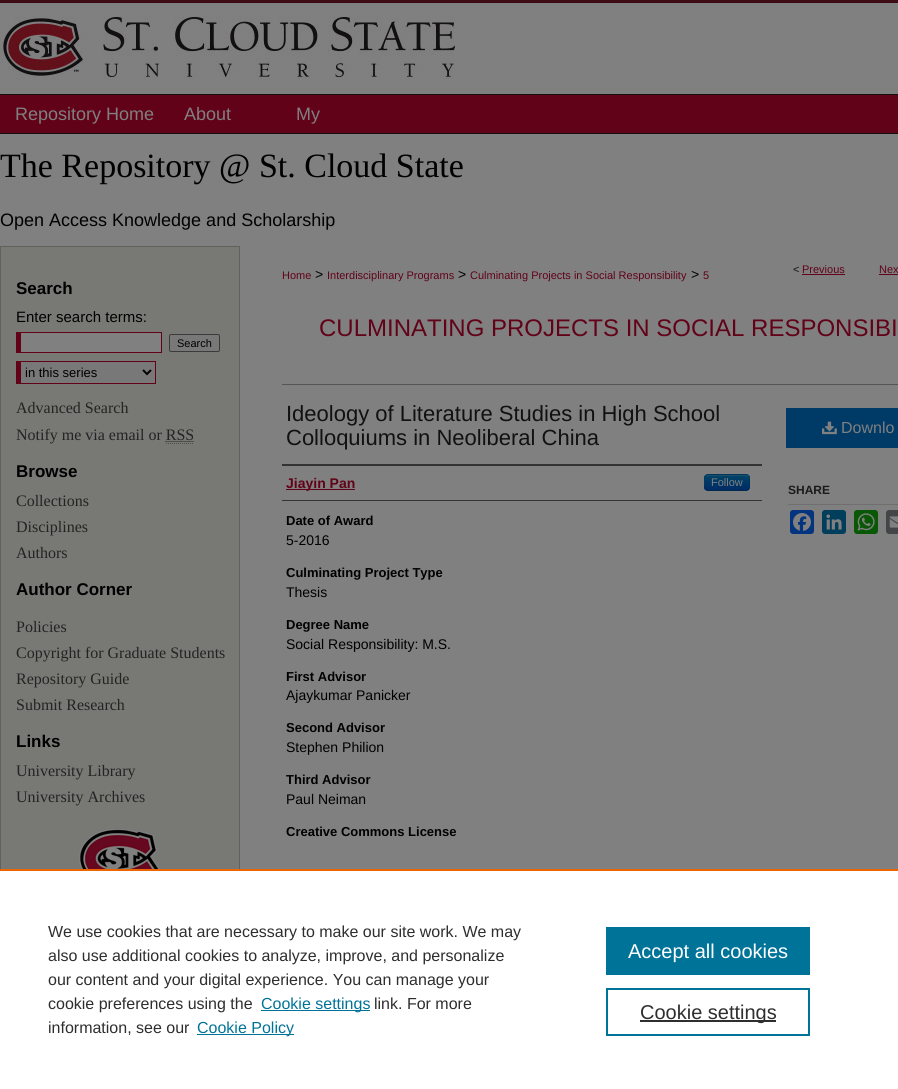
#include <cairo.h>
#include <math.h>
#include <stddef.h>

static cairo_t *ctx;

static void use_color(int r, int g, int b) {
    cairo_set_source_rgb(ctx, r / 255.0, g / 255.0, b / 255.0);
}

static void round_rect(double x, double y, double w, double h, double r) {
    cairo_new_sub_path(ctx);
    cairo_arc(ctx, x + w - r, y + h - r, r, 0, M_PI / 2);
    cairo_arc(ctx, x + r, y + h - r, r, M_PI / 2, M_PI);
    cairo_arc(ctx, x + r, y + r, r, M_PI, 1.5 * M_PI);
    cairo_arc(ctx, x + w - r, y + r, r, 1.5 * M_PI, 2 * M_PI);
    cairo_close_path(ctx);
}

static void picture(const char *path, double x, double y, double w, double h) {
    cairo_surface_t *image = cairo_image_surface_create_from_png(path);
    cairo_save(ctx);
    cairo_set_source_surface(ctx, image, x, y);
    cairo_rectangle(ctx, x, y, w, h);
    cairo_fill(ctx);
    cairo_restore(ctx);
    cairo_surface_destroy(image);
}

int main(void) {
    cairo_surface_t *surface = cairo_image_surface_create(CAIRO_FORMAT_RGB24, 898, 1089);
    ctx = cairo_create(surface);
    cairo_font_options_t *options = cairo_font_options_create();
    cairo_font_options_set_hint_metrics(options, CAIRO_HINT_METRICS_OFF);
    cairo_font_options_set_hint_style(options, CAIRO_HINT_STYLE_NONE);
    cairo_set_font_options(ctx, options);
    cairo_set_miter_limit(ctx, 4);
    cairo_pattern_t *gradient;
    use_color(128, 128, 128);
    cairo_paint(ctx);
    picture("img1.png", 0, 0, 898, 95);
    use_color(97, 2, 24);
    cairo_rectangle(ctx, 0, 95, 898, 38);
    cairo_fill(ctx);
    use_color(19, 15, 13);
    cairo_rectangle(ctx, 0, 133, 898, 1);
    cairo_fill(ctx);
    cairo_select_font_face(ctx, "Liberation Sans", CAIRO_FONT_SLANT_NORMAL, CAIRO_FONT_WEIGHT_NORMAL);
    cairo_set_font_size(ctx, 18);
    use_color(128, 128, 128);
    cairo_move_to(ctx, 15, 120);
    cairo_show_text(ctx, "Repository Home");
    cairo_move_to(ctx, 184, 120);
    cairo_show_text(ctx, "About");
    cairo_move_to(ctx, 296, 120);
    cairo_show_text(ctx, "My");
    cairo_select_font_face(ctx, "Liberation Serif", CAIRO_FONT_SLANT_NORMAL, CAIRO_FONT_WEIGHT_NORMAL);
    cairo_set_font_size(ctx, 34);
    use_color(0, 0, 0);
    cairo_move_to(ctx, 0, 177);
    cairo_show_text(ctx, "The Repository @ St. Cloud State");
    cairo_select_font_face(ctx, "Liberation Sans", CAIRO_FONT_SLANT_NORMAL, CAIRO_FONT_WEIGHT_NORMAL);
    cairo_set_font_size(ctx, 18);
    cairo_move_to(ctx, 0, 226);
    cairo_show_text(ctx, "Open Access Knowledge and Scholarship");
    use_color(120, 120, 117);
    cairo_rectangle(ctx, 1, 247, 238, 622);
    cairo_fill(ctx);
    cairo_rectangle(ctx, 0.5, 246.5, 239, 728);
    use_color(97, 97, 92);
    cairo_set_line_width(ctx, 1);
    cairo_stroke(ctx);
    cairo_select_font_face(ctx, "Liberation Sans", CAIRO_FONT_SLANT_NORMAL, CAIRO_FONT_WEIGHT_BOLD);
    cairo_set_font_size(ctx, 17);
    use_color(0, 0, 0);
    cairo_move_to(ctx, 16, 294);
    cairo_show_text(ctx, "Search");
    cairo_select_font_face(ctx, "Liberation Sans", CAIRO_FONT_SLANT_NORMAL, CAIRO_FONT_WEIGHT_NORMAL);
    cairo_set_font_size(ctx, 15);
    cairo_move_to(ctx, 16, 322);
    cairo_show_text(ctx, "Enter search terms:");
    use_color(128, 128, 128);
    cairo_rectangle(ctx, 21, 333, 140, 19);
    cairo_fill(ctx);
    use_color(97, 2, 24);
    cairo_rectangle(ctx, 16, 332, 146, 1);
    cairo_fill(ctx);
    cairo_rectangle(ctx, 161, 332, 1, 21);
    cairo_fill(ctx);
    cairo_rectangle(ctx, 16, 352, 146, 1);
    cairo_fill(ctx);
    cairo_rectangle(ctx, 16, 332, 5, 21);
    cairo_fill(ctx);
    use_color(120, 120, 120);
    round_rect(169.5, 334.5, 50, 17, 1.5);
    cairo_fill_preserve(ctx);
    use_color(59, 59, 59);
    cairo_stroke(ctx);
    cairo_set_font_size(ctx, 11);
    use_color(0, 0, 0);
    cairo_move_to(ctx, 177, 347);
    cairo_show_text(ctx, "Search");
    use_color(120, 120, 120);
    cairo_rectangle(ctx, 21, 362, 134, 21);
    cairo_fill(ctx);
    use_color(97, 2, 24);
    cairo_rectangle(ctx, 16, 361, 140, 1);
    cairo_fill(ctx);
    cairo_rectangle(ctx, 155, 361, 1, 23);
    cairo_fill(ctx);
    cairo_rectangle(ctx, 16, 383, 140, 1);
    cairo_fill(ctx);
    cairo_rectangle(ctx, 16, 361, 5, 23);
    cairo_fill(ctx);
    cairo_new_path(ctx);
    cairo_move_to(ctx, 143, 370);
    cairo_line_to(ctx, 147, 374);
    cairo_line_to(ctx, 151, 370);
    use_color(0, 0, 0);
    cairo_set_line_width(ctx, 2);
    cairo_stroke(ctx);
    cairo_set_font_size(ctx, 13);
    cairo_move_to(ctx, 25, 377);
    cairo_show_text(ctx, "in this series");
    cairo_select_font_face(ctx, "Liberation Serif", CAIRO_FONT_SLANT_NORMAL, CAIRO_FONT_WEIGHT_NORMAL);
    cairo_set_font_size(ctx, 16);
    use_color(35, 35, 35);
    cairo_move_to(ctx, 16, 413);
    cairo_show_text(ctx, "Advanced Search");
    cairo_move_to(ctx, 16, 440);
    cairo_show_text(ctx, "Notify me via email or RSS");
    cairo_new_path(ctx);
    cairo_move_to(ctx, 165.5, 441.5);
    cairo_line_to(ctx, 194, 441.5);
    cairo_set_line_width(ctx, 1);
    cairo_set_dash(ctx, (double[]){1, 1}, 2, 0);
    cairo_stroke(ctx);
    cairo_new_path(ctx);
    cairo_move_to(ctx, 166, 443.5);
    cairo_line_to(ctx, 194, 443.5);
    use_color(77, 77, 77);
    cairo_stroke(ctx);
    cairo_select_font_face(ctx, "Liberation Sans", CAIRO_FONT_SLANT_NORMAL, CAIRO_FONT_WEIGHT_BOLD);
    cairo_set_font_size(ctx, 17);
    use_color(0, 0, 0);
    cairo_move_to(ctx, 16, 477);
    cairo_show_text(ctx, "Browse");
    cairo_select_font_face(ctx, "Liberation Serif", CAIRO_FONT_SLANT_NORMAL, CAIRO_FONT_WEIGHT_NORMAL);
    cairo_set_font_size(ctx, 16);
    use_color(35, 35, 35);
    cairo_move_to(ctx, 16, 506);
    cairo_show_text(ctx, "Collections");
    cairo_move_to(ctx, 16, 532);
    cairo_show_text(ctx, "Disciplines");
    cairo_move_to(ctx, 16, 558);
    cairo_show_text(ctx, "Authors");
    cairo_select_font_face(ctx, "Liberation Sans", CAIRO_FONT_SLANT_NORMAL, CAIRO_FONT_WEIGHT_BOLD);
    cairo_set_font_size(ctx, 17);
    use_color(0, 0, 0);
    cairo_move_to(ctx, 16, 595);
    cairo_show_text(ctx, "Author Corner");
    cairo_select_font_face(ctx, "Liberation Serif", CAIRO_FONT_SLANT_NORMAL, CAIRO_FONT_WEIGHT_NORMAL);
    cairo_set_font_size(ctx, 16);
    use_color(35, 35, 35);
    cairo_move_to(ctx, 16, 632);
    cairo_show_text(ctx, "Policies");
    cairo_move_to(ctx, 16, 658);
    cairo_show_text(ctx, "Copyright for Graduate Students");
    cairo_move_to(ctx, 16, 684);
    cairo_show_text(ctx, "Repository Guide");
    cairo_move_to(ctx, 16, 710);
    cairo_show_text(ctx, "Submit Research");
    cairo_select_font_face(ctx, "Liberation Sans", CAIRO_FONT_SLANT_NORMAL, CAIRO_FONT_WEIGHT_BOLD);
    cairo_set_font_size(ctx, 17);
    use_color(0, 0, 0);
    cairo_move_to(ctx, 16, 747);
    cairo_show_text(ctx, "Links");
    cairo_select_font_face(ctx, "Liberation Serif", CAIRO_FONT_SLANT_NORMAL, CAIRO_FONT_WEIGHT_NORMAL);
    cairo_set_font_size(ctx, 16);
    use_color(35, 35, 35);
    cairo_move_to(ctx, 16, 776);
    cairo_show_text(ctx, "University Library");
    cairo_move_to(ctx, 16, 802);
    cairo_show_text(ctx, "University Archives");
    picture("img2.png", 20, 829, 200, 40);
    cairo_select_font_face(ctx, "Liberation Sans", CAIRO_FONT_SLANT_NORMAL, CAIRO_FONT_WEIGHT_NORMAL);
    cairo_set_font_size(ctx, 11);
    use_color(97, 2, 24);
    cairo_move_to(ctx, 282, 279);
    cairo_show_text(ctx, "Home");
    cairo_set_font_size(ctx, 14);
    use_color(0, 0, 0);
    cairo_move_to(ctx, 315, 279);
    cairo_show_text(ctx, ">");
    cairo_set_font_size(ctx, 11);
    use_color(97, 2, 24);
    cairo_move_to(ctx, 327, 279);
    cairo_show_text(ctx, "Interdisciplinary Programs");
    cairo_set_font_size(ctx, 14);
    use_color(0, 0, 0);
    cairo_move_to(ctx, 458, 279);
    cairo_show_text(ctx, ">");
    cairo_set_font_size(ctx, 11);
    use_color(97, 2, 24);
    cairo_move_to(ctx, 470, 279);
    cairo_show_text(ctx, "Culminating Projects in Social Responsibility");
    cairo_set_font_size(ctx, 14);
    use_color(0, 0, 0);
    cairo_move_to(ctx, 691, 279);
    cairo_show_text(ctx, ">");
    cairo_set_font_size(ctx, 11);
    use_color(97, 2, 24);
    cairo_move_to(ctx, 703, 279);
    cairo_show_text(ctx, "5");
    use_color(17, 17, 17);
    cairo_move_to(ctx, 793, 273);
    cairo_show_text(ctx, "<");
    use_color(97, 2, 24);
    cairo_move_to(ctx, 802, 273);
    cairo_show_text(ctx, "Previous");
    cairo_rectangle(ctx, 802, 274, 43, 1);
    cairo_fill(ctx);
    cairo_move_to(ctx, 879, 273);
    cairo_show_text(ctx, "Nex");
    cairo_rectangle(ctx, 879, 274, 19, 1);
    cairo_fill(ctx);
    cairo_set_font_size(ctx, 24);
    cairo_move_to(ctx, 319, 336);
    cairo_show_text(ctx, "CULMINATING PROJECTS IN SOCIAL RESPONSIBI");
    use_color(85, 85, 85);
    cairo_rectangle(ctx, 282, 384, 616, 1);
    cairo_fill(ctx);
    cairo_set_font_size(ctx, 22);
    use_color(17, 17, 17);
    cairo_move_to(ctx, 286, 421);
    cairo_show_text(ctx, "Ideology of Literature Studies in High School");
    cairo_move_to(ctx, 286, 445);
    cairo_show_text(ctx, "Colloquiums in Neoliberal China");
    use_color(51, 51, 51);
    cairo_rectangle(ctx, 282, 464, 480, 2);
    cairo_fill(ctx);
    cairo_rectangle(ctx, 282, 500, 480, 1);
    cairo_fill(ctx);
    use_color(97, 2, 24);
    cairo_rectangle(ctx, 286, 489, 69, 1);
    cairo_fill(ctx);
    cairo_select_font_face(ctx, "Liberation Sans", CAIRO_FONT_SLANT_NORMAL, CAIRO_FONT_WEIGHT_BOLD);
    cairo_set_font_size(ctx, 14);
    cairo_move_to(ctx, 286, 488);
    cairo_show_text(ctx, "Jiayin Pan");
    use_color(0, 58, 102);
    round_rect(704, 474, 46, 17, 4);
    cairo_fill(ctx);
    cairo_save(ctx);
    round_rect(704, 474, 46, 17, 4);
    cairo_clip(ctx);
    gradient = cairo_pattern_create_linear(727, 475, 727, 490);
    cairo_pattern_add_color_stop_rgba(gradient, 0, 0, 0.267, 0.4, 1);
    cairo_pattern_add_color_stop_rgba(gradient, 1, 0, 0.169, 0.4, 1);
    cairo_set_source(ctx, gradient);
    cairo_pattern_destroy(gradient);
    cairo_rectangle(ctx, 704, 475, 46, 15);
    cairo_fill(ctx);
    cairo_restore(ctx);
    cairo_set_source_rgba(ctx, 0.502, 0.502, 0.502, 0.2);
    cairo_new_path(ctx);
    cairo_move_to(ctx, 708, 476);
    cairo_line_to(ctx, 741, 476);
    cairo_curve_to(ctx, 748, 476, 749, 476, 749, 482);
    cairo_line_to(ctx, 749, 488);
    cairo_line_to(ctx, 749, 481);
    cairo_curve_to(ctx, 749, 474, 747, 475, 740, 475);
    cairo_line_to(ctx, 714, 475);
    cairo_curve_to(ctx, 707, 475, 705, 474, 705, 481);
    cairo_line_to(ctx, 705, 489);
    cairo_curve_to(ctx, 705, 486, 703, 476, 708, 476);
    cairo_close_path(ctx);
    cairo_fill(ctx);
    cairo_new_path(ctx);
    cairo_move_to(ctx, 748.5, 489.5);
    cairo_curve_to(ctx, 748, 490, 747, 490.5, 746, 490.5);
    cairo_line_to(ctx, 708, 490.5);
    cairo_curve_to(ctx, 707, 490.5, 706, 490, 705.5, 489.5);
    cairo_set_source_rgba(ctx, 0, 0, 0, 0.25);
    cairo_set_dash(ctx, NULL, 0, 0);
    cairo_stroke(ctx);
    cairo_new_path(ctx);
    cairo_move_to(ctx, 705.5, 489.5);
    cairo_curve_to(ctx, 704, 487.5, 704.5, 484.5, 704.5, 482.5);
    cairo_curve_to(ctx, 704.5, 473.5, 705, 474.5, 714.5, 474.5);
    cairo_line_to(ctx, 739.5, 474.5);
    cairo_curve_to(ctx, 749, 474.5, 749.5, 473.5, 749.5, 482.5);
    cairo_curve_to(ctx, 749.5, 484.5, 750, 487.5, 748.5, 489.5);
    cairo_set_source_rgba(ctx, 0, 0, 0, 0.1);
    cairo_stroke(ctx);
    cairo_select_font_face(ctx, "Liberation Sans", CAIRO_FONT_SLANT_NORMAL, CAIRO_FONT_WEIGHT_NORMAL);
    cairo_set_font_size(ctx, 11);
    use_color(128, 128, 128);
    cairo_move_to(ctx, 711, 486);
    cairo_show_text(ctx, "Follow");
    cairo_select_font_face(ctx, "Liberation Sans", CAIRO_FONT_SLANT_NORMAL, CAIRO_FONT_WEIGHT_BOLD);
    cairo_set_font_size(ctx, 13);
    use_color(0, 0, 0);
    cairo_move_to(ctx, 286, 525);
    cairo_show_text(ctx, "Date of Award");
    cairo_select_font_face(ctx, "Liberation Sans", CAIRO_FONT_SLANT_NORMAL, CAIRO_FONT_WEIGHT_NORMAL);
    cairo_set_font_size(ctx, 14);
    cairo_move_to(ctx, 286, 545);
    cairo_show_text(ctx, "5-2016");
    cairo_select_font_face(ctx, "Liberation Sans", CAIRO_FONT_SLANT_NORMAL, CAIRO_FONT_WEIGHT_BOLD);
    cairo_set_font_size(ctx, 13);
    cairo_move_to(ctx, 286, 577);
    cairo_show_text(ctx, "Culminating Project Type");
    cairo_select_font_face(ctx, "Liberation Sans", CAIRO_FONT_SLANT_NORMAL, CAIRO_FONT_WEIGHT_NORMAL);
    cairo_set_font_size(ctx, 14);
    cairo_move_to(ctx, 286, 597);
    cairo_show_text(ctx, "Thesis");
    cairo_select_font_face(ctx, "Liberation Sans", CAIRO_FONT_SLANT_NORMAL, CAIRO_FONT_WEIGHT_BOLD);
    cairo_set_font_size(ctx, 13);
    cairo_move_to(ctx, 286, 629);
    cairo_show_text(ctx, "Degree Name");
    cairo_select_font_face(ctx, "Liberation Sans", CAIRO_FONT_SLANT_NORMAL, CAIRO_FONT_WEIGHT_NORMAL);
    cairo_set_font_size(ctx, 14);
    cairo_move_to(ctx, 286, 649);
    cairo_show_text(ctx, "Social Responsibility: M.S.");
    cairo_select_font_face(ctx, "Liberation Sans", CAIRO_FONT_SLANT_NORMAL, CAIRO_FONT_WEIGHT_BOLD);
    cairo_set_font_size(ctx, 13);
    cairo_move_to(ctx, 286, 681);
    cairo_show_text(ctx, "First Advisor");
    cairo_select_font_face(ctx, "Liberation Sans", CAIRO_FONT_SLANT_NORMAL, CAIRO_FONT_WEIGHT_NORMAL);
    cairo_set_font_size(ctx, 14);
    cairo_move_to(ctx, 286, 700);
    cairo_show_text(ctx, "Ajaykumar Panicker");
    cairo_select_font_face(ctx, "Liberation Sans", CAIRO_FONT_SLANT_NORMAL, CAIRO_FONT_WEIGHT_BOLD);
    cairo_set_font_size(ctx, 13);
    cairo_move_to(ctx, 286, 732);
    cairo_show_text(ctx, "Second Advisor");
    cairo_select_font_face(ctx, "Liberation Sans", CAIRO_FONT_SLANT_NORMAL, CAIRO_FONT_WEIGHT_NORMAL);
    cairo_set_font_size(ctx, 14);
    cairo_move_to(ctx, 286, 752);
    cairo_show_text(ctx, "Stephen Philion");
    cairo_select_font_face(ctx, "Liberation Sans", CAIRO_FONT_SLANT_NORMAL, CAIRO_FONT_WEIGHT_BOLD);
    cairo_set_font_size(ctx, 13);
    cairo_move_to(ctx, 286, 784);
    cairo_show_text(ctx, "Third Advisor");
    cairo_select_font_face(ctx, "Liberation Sans", CAIRO_FONT_SLANT_NORMAL, CAIRO_FONT_WEIGHT_NORMAL);
    cairo_set_font_size(ctx, 14);
    cairo_move_to(ctx, 286, 804);
    cairo_show_text(ctx, "Paul Neiman");
    cairo_select_font_face(ctx, "Liberation Sans", CAIRO_FONT_SLANT_NORMAL, CAIRO_FONT_WEIGHT_BOLD);
    cairo_set_font_size(ctx, 13);
    cairo_move_to(ctx, 286, 836);
    cairo_show_text(ctx, "Creative Commons License");
    use_color(0, 58, 102);
    cairo_rectangle(ctx, 786, 408, 112, 40);
    cairo_fill(ctx);
    picture("img3.png", 822, 421, 15, 14);
    cairo_select_font_face(ctx, "Liberation Sans", CAIRO_FONT_SLANT_NORMAL, CAIRO_FONT_WEIGHT_NORMAL);
    cairo_set_font_size(ctx, 16);
    use_color(128, 128, 128);
    cairo_move_to(ctx, 841, 433);
    cairo_show_text(ctx, "Downlo");
    use_color(111, 111, 111);
    cairo_rectangle(ctx, 788, 504, 110, 1);
    cairo_fill(ctx);
    cairo_select_font_face(ctx, "Liberation Sans", CAIRO_FONT_SLANT_NORMAL, CAIRO_FONT_WEIGHT_BOLD);
    cairo_set_font_size(ctx, 12);
    use_color(26, 26, 26);
    cairo_move_to(ctx, 788, 494);
    cairo_show_text(ctx, "SHARE");
    use_color(4, 51, 128);
    round_rect(790, 510, 24, 24, 3);
    cairo_fill(ctx);
    picture("img4.png", 793, 513, 18, 18);
    use_color(0, 62, 91);
    round_rect(822, 510, 24, 24, 3);
    cairo_fill(ctx);
    picture("img5.png", 826, 514, 16, 16);
    use_color(9, 88, 5);
    round_rect(854, 510, 24, 24, 3);
    cairo_fill(ctx);
    picture("img6.png", 857, 513, 18, 18);
    use_color(68, 69, 72);
    round_rect(886, 510, 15, 24, 3);
    cairo_fill(ctx);
    picture("img7.png", 889, 516, 9, 12);
    use_color(255, 255, 255);
    cairo_rectangle(ctx, 0, 871, 898, 218);
    cairo_fill(ctx);
    use_color(235, 101, 0);
    cairo_rectangle(ctx, 0, 869, 898, 2);
    cairo_fill(ctx);
    cairo_select_font_face(ctx, "Liberation Sans", CAIRO_FONT_SLANT_NORMAL, CAIRO_FONT_WEIGHT_NORMAL);
    cairo_set_font_size(ctx, 16);
    use_color(46, 46, 46);
    cairo_move_to(ctx, 48, 937);
    cairo_show_text(ctx, "We use cookies that are necessary to make our site work. We may");
    cairo_move_to(ctx, 48, 961);
    cairo_show_text(ctx, "also use additional cookies to analyze, improve, and personalize");
    cairo_move_to(ctx, 48, 985);
    cairo_show_text(ctx, "our content and your digital experience. You can manage your");
    cairo_move_to(ctx, 48, 1009);
    cairo_show_text(ctx, "cookie preferences using the");
    use_color(0, 115, 152);
    cairo_rectangle(ctx, 261, 1010, 109, 1);
    cairo_fill(ctx);
    cairo_move_to(ctx, 261, 1009);
    cairo_show_text(ctx, "Cookie settings");
    use_color(46, 46, 46);
    cairo_move_to(ctx, 374, 1009);
    cairo_show_text(ctx, "link. For more");
    cairo_move_to(ctx, 48, 1033);
    cairo_show_text(ctx, "information, see our");
    use_color(0, 115, 152);
    cairo_rectangle(ctx, 197, 1034, 97, 1);
    cairo_fill(ctx);
    cairo_move_to(ctx, 197, 1033);
    cairo_show_text(ctx, "Cookie Policy");
    cairo_rectangle(ctx, 606, 927, 204, 48);
    cairo_fill(ctx);
    cairo_set_font_size(ctx, 20);
    use_color(255, 255, 255);
    cairo_move_to(ctx, 628, 958);
    cairo_show_text(ctx, "Accept all cookies");
    cairo_rectangle(ctx, 607, 989, 202, 46);
    use_color(0, 115, 152);
    cairo_set_line_width(ctx, 2);
    cairo_stroke(ctx);
    use_color(46, 46, 46);
    cairo_rectangle(ctx, 640, 1020, 136, 2);
    cairo_fill(ctx);
    cairo_move_to(ctx, 640, 1019);
    cairo_show_text(ctx, "Cookie settings");
    cairo_surface_write_to_png(surface, "result.png");
    cairo_font_options_destroy(options);
    cairo_destroy(ctx);
    cairo_surface_destroy(surface);
    return 0;
}
